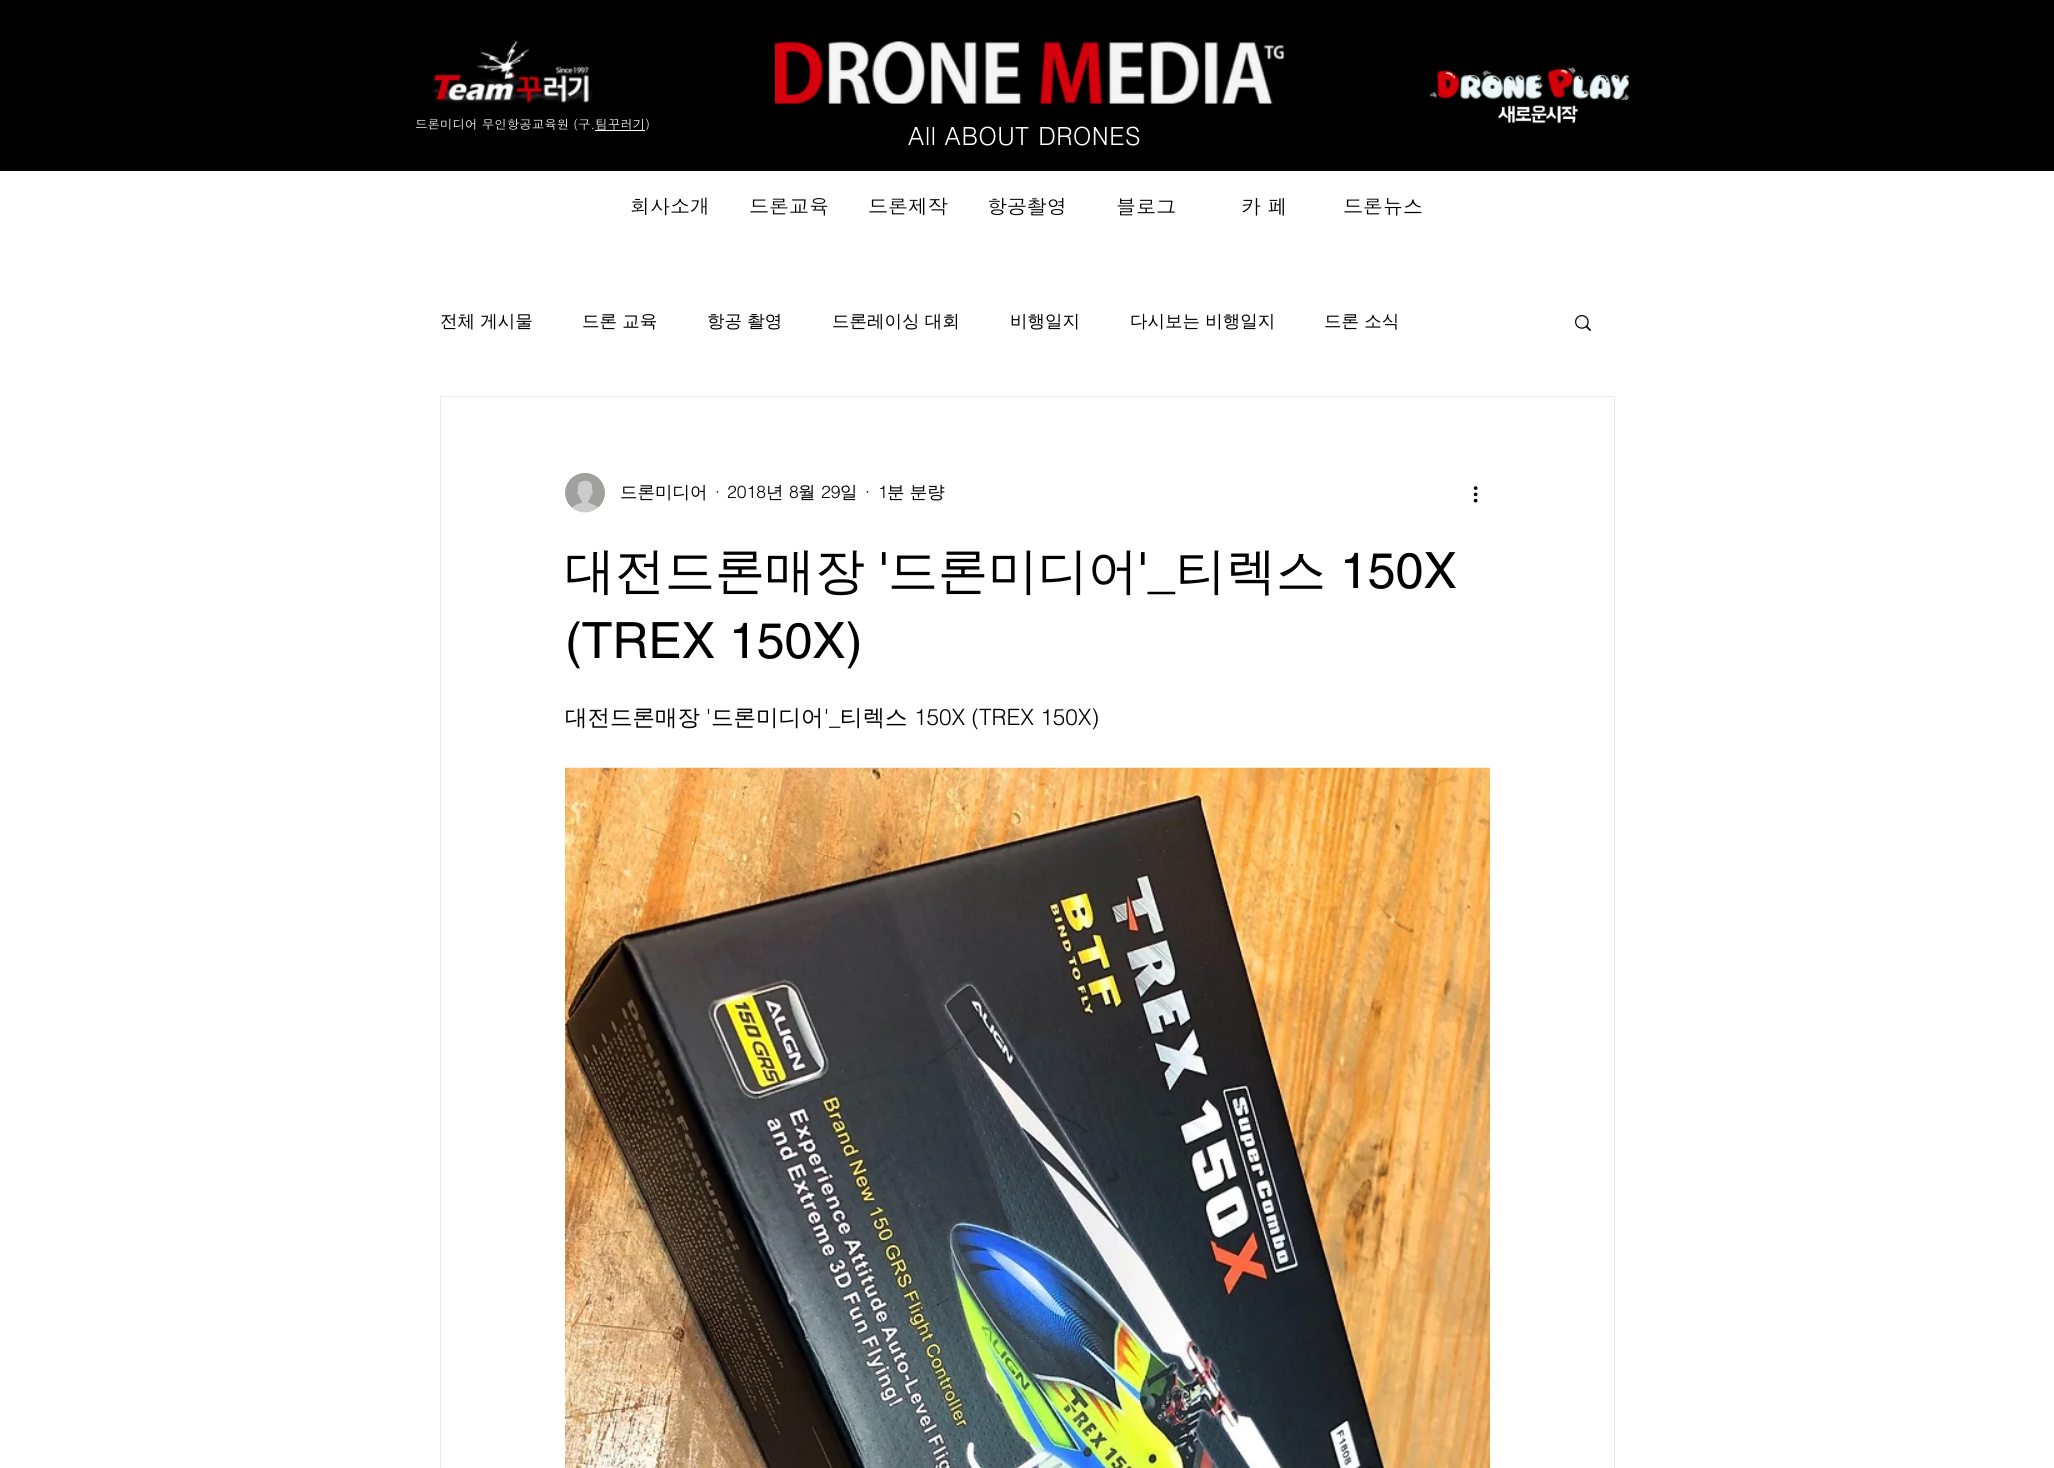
#include <cairo.h>
#include <math.h>
#include <stddef.h>

static cairo_t *ctx;

static void use_color(int r, int g, int b) {
    cairo_set_source_rgb(ctx, r / 255.0, g / 255.0, b / 255.0);
}

static void picture(const char *path, double x, double y, double w, double h) {
    cairo_surface_t *image = cairo_image_surface_create_from_png(path);
    cairo_save(ctx);
    cairo_set_source_surface(ctx, image, x, y);
    cairo_rectangle(ctx, x, y, w, h);
    cairo_fill(ctx);
    cairo_restore(ctx);
    cairo_surface_destroy(image);
}

int main(void) {
    cairo_surface_t *surface = cairo_image_surface_create(CAIRO_FORMAT_RGB24, 2054, 1468);
    ctx = cairo_create(surface);
    cairo_font_options_t *options = cairo_font_options_create();
    cairo_font_options_set_hint_metrics(options, CAIRO_HINT_METRICS_OFF);
    cairo_font_options_set_hint_style(options, CAIRO_HINT_STYLE_NONE);
    cairo_set_font_options(ctx, options);
    cairo_set_miter_limit(ctx, 4);
    use_color(255, 255, 255);
    cairo_paint(ctx);
    use_color(0, 0, 0);
    cairo_rectangle(ctx, 0, 0, 2054, 171);
    cairo_fill(ctx);
    picture("img1.png", 431, 41, 162, 62);
    picture("img2.png", 775, 41, 509, 63);
    picture("img3.png", 1430, 67, 199, 33);
    cairo_select_font_face(ctx, "Dotum", CAIRO_FONT_SLANT_NORMAL, CAIRO_FONT_WEIGHT_NORMAL);
    cairo_set_font_size(ctx, 12.5);
    use_color(255, 255, 255);
    cairo_move_to(ctx, 415, 129);
    cairo_show_text(ctx, "드론미디어 무인항공교육원 (구.팀꾸러기)");
    cairo_rectangle(ctx, 595, 130, 50, 1);
    cairo_fill(ctx);
    picture("img4.png", 1498, 105, 80, 19);
    cairo_set_font_size(ctx, 25);
    cairo_move_to(ctx, 908, 145);
    cairo_show_text(ctx, "All ABOUT DRONES");
    cairo_set_font_size(ctx, 20);
    use_color(0, 0, 0);
    cairo_move_to(ctx, 630, 214);
    cairo_show_text(ctx, "회사소개");
    cairo_move_to(ctx, 749, 214);
    cairo_show_text(ctx, "드론교육");
    cairo_move_to(ctx, 868, 214);
    cairo_show_text(ctx, "드론제작");
    cairo_move_to(ctx, 987, 214);
    cairo_show_text(ctx, "항공촬영");
    cairo_move_to(ctx, 1116, 214);
    cairo_show_text(ctx, "블로그");
    cairo_move_to(ctx, 1241, 214);
    cairo_show_text(ctx, "카 페");
    cairo_move_to(ctx, 1343, 214);
    cairo_show_text(ctx, "드론뉴스");
    cairo_select_font_face(ctx, "WenQuanYi Zen Hei Medium", CAIRO_FONT_SLANT_NORMAL, CAIRO_FONT_WEIGHT_NORMAL);
    cairo_set_font_size(ctx, 17.5);
    cairo_move_to(ctx, 440, 327);
    cairo_show_text(ctx, "전체 게시물");
    cairo_move_to(ctx, 582, 327);
    cairo_show_text(ctx, "드론 교육");
    cairo_move_to(ctx, 707, 327);
    cairo_show_text(ctx, "항공 촬영");
    cairo_move_to(ctx, 832, 327);
    cairo_show_text(ctx, "드론레이싱 대회");
    cairo_move_to(ctx, 1010, 327);
    cairo_show_text(ctx, "비행일지");
    cairo_move_to(ctx, 1130, 327);
    cairo_show_text(ctx, "다시보는 비행일지");
    cairo_move_to(ctx, 1324, 327);
    cairo_show_text(ctx, "드론 소식");
    picture("img5.png", 1575, 315, 16, 16);
    cairo_rectangle(ctx, 440.5, 396.5, 1174, 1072);
    use_color(235, 235, 235);
    cairo_set_line_width(ctx, 1);
    cairo_stroke(ctx);
    picture("img6.png", 565, 473, 40, 40);
    use_color(0, 0, 0);
    cairo_move_to(ctx, 620, 498);
    cairo_show_text(ctx, "드론미디어");
    cairo_select_font_face(ctx, "helvetica Light", CAIRO_FONT_SLANT_NORMAL, CAIRO_FONT_WEIGHT_NORMAL);
    cairo_move_to(ctx, 715, 498);
    cairo_show_text(ctx, "·");
    cairo_move_to(ctx, 727, 498);
    cairo_show_text(ctx, "2018");
    cairo_select_font_face(ctx, "WenQuanYi Zen Hei Medium", CAIRO_FONT_SLANT_NORMAL, CAIRO_FONT_WEIGHT_NORMAL);
    cairo_move_to(ctx, 766, 498);
    cairo_show_text(ctx, "년");
    cairo_select_font_face(ctx, "helvetica Light", CAIRO_FONT_SLANT_NORMAL, CAIRO_FONT_WEIGHT_NORMAL);
    cairo_move_to(ctx, 789, 498);
    cairo_show_text(ctx, "8");
    cairo_select_font_face(ctx, "WenQuanYi Zen Hei Medium", CAIRO_FONT_SLANT_NORMAL, CAIRO_FONT_WEIGHT_NORMAL);
    cairo_move_to(ctx, 798, 498);
    cairo_show_text(ctx, "월");
    cairo_select_font_face(ctx, "helvetica Light", CAIRO_FONT_SLANT_NORMAL, CAIRO_FONT_WEIGHT_NORMAL);
    cairo_move_to(ctx, 821, 498);
    cairo_show_text(ctx, "29");
    cairo_select_font_face(ctx, "WenQuanYi Zen Hei Medium", CAIRO_FONT_SLANT_NORMAL, CAIRO_FONT_WEIGHT_NORMAL);
    cairo_move_to(ctx, 840, 498);
    cairo_show_text(ctx, "일");
    cairo_select_font_face(ctx, "helvetica Light", CAIRO_FONT_SLANT_NORMAL, CAIRO_FONT_WEIGHT_NORMAL);
    cairo_move_to(ctx, 865, 498);
    cairo_show_text(ctx, "·");
    cairo_move_to(ctx, 878, 498);
    cairo_show_text(ctx, "1");
    cairo_select_font_face(ctx, "WenQuanYi Zen Hei Medium", CAIRO_FONT_SLANT_NORMAL, CAIRO_FONT_WEIGHT_NORMAL);
    cairo_move_to(ctx, 887, 498);
    cairo_show_text(ctx, "분 분량");
    picture("img7.png", 1473, 486, 5, 17);
    cairo_set_font_size(ctx, 50);
    cairo_move_to(ctx, 565, 588);
    cairo_show_text(ctx, "대전드론매장");
    cairo_select_font_face(ctx, "helvetica", CAIRO_FONT_SLANT_NORMAL, CAIRO_FONT_WEIGHT_NORMAL);
    cairo_move_to(ctx, 879, 588);
    cairo_show_text(ctx, "'");
    cairo_select_font_face(ctx, "WenQuanYi Zen Hei Medium", CAIRO_FONT_SLANT_NORMAL, CAIRO_FONT_WEIGHT_NORMAL);
    cairo_move_to(ctx, 888, 588);
    cairo_show_text(ctx, "드론미디어");
    cairo_select_font_face(ctx, "helvetica", CAIRO_FONT_SLANT_NORMAL, CAIRO_FONT_WEIGHT_NORMAL);
    cairo_move_to(ctx, 1138, 588);
    cairo_show_text(ctx, "'_");
    cairo_select_font_face(ctx, "WenQuanYi Zen Hei Medium", CAIRO_FONT_SLANT_NORMAL, CAIRO_FONT_WEIGHT_NORMAL);
    cairo_move_to(ctx, 1176, 588);
    cairo_show_text(ctx, "티렉스");
    cairo_select_font_face(ctx, "helvetica", CAIRO_FONT_SLANT_NORMAL, CAIRO_FONT_WEIGHT_NORMAL);
    cairo_move_to(ctx, 1340, 588);
    cairo_show_text(ctx, "150X");
    cairo_move_to(ctx, 565, 658);
    cairo_show_text(ctx, "(TREX 150X)");
    cairo_select_font_face(ctx, "WenQuanYi Zen Hei Medium", CAIRO_FONT_SLANT_NORMAL, CAIRO_FONT_WEIGHT_NORMAL);
    cairo_set_font_size(ctx, 22.5);
    cairo_move_to(ctx, 565, 725);
    cairo_show_text(ctx, "대전드론매장");
    cairo_select_font_face(ctx, "helvetica Light", CAIRO_FONT_SLANT_NORMAL, CAIRO_FONT_WEIGHT_NORMAL);
    cairo_move_to(ctx, 706, 725);
    cairo_show_text(ctx, "'");
    cairo_select_font_face(ctx, "WenQuanYi Zen Hei Medium", CAIRO_FONT_SLANT_NORMAL, CAIRO_FONT_WEIGHT_NORMAL);
    cairo_move_to(ctx, 711, 725);
    cairo_show_text(ctx, "드론미디어");
    cairo_select_font_face(ctx, "helvetica Light", CAIRO_FONT_SLANT_NORMAL, CAIRO_FONT_WEIGHT_NORMAL);
    cairo_move_to(ctx, 824, 725);
    cairo_show_text(ctx, "'_");
    cairo_select_font_face(ctx, "WenQuanYi Zen Hei Medium", CAIRO_FONT_SLANT_NORMAL, CAIRO_FONT_WEIGHT_NORMAL);
    cairo_move_to(ctx, 840, 725);
    cairo_show_text(ctx, "티렉스");
    cairo_select_font_face(ctx, "helvetica Light", CAIRO_FONT_SLANT_NORMAL, CAIRO_FONT_WEIGHT_NORMAL);
    cairo_move_to(ctx, 914, 725);
    cairo_show_text(ctx, "150X (TREX 150X)");
    picture("img8.png", 565, 767, 925, 701);
    cairo_surface_write_to_png(surface, "result.png");
    cairo_font_options_destroy(options);
    cairo_destroy(ctx);
    cairo_surface_destroy(surface);
    return 0;
}
